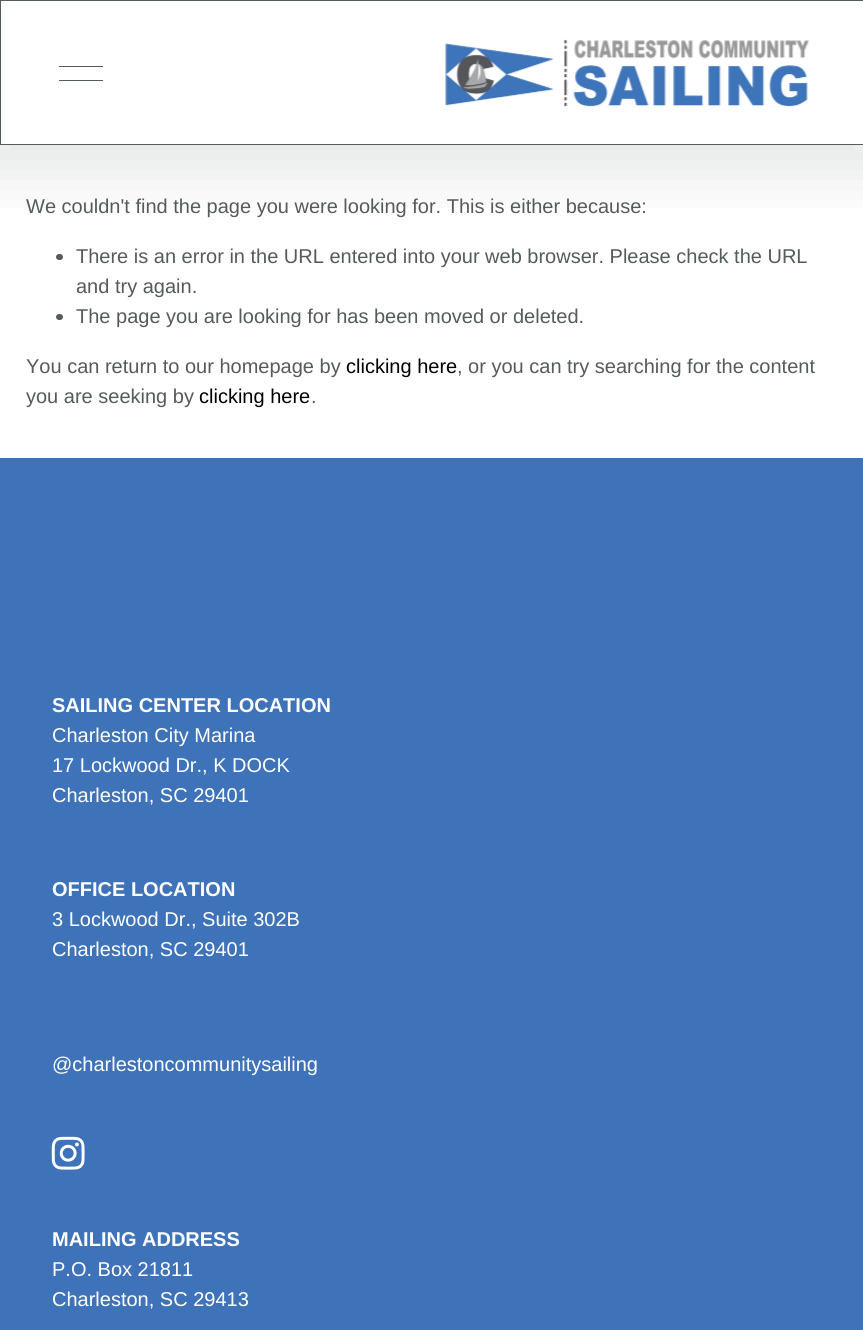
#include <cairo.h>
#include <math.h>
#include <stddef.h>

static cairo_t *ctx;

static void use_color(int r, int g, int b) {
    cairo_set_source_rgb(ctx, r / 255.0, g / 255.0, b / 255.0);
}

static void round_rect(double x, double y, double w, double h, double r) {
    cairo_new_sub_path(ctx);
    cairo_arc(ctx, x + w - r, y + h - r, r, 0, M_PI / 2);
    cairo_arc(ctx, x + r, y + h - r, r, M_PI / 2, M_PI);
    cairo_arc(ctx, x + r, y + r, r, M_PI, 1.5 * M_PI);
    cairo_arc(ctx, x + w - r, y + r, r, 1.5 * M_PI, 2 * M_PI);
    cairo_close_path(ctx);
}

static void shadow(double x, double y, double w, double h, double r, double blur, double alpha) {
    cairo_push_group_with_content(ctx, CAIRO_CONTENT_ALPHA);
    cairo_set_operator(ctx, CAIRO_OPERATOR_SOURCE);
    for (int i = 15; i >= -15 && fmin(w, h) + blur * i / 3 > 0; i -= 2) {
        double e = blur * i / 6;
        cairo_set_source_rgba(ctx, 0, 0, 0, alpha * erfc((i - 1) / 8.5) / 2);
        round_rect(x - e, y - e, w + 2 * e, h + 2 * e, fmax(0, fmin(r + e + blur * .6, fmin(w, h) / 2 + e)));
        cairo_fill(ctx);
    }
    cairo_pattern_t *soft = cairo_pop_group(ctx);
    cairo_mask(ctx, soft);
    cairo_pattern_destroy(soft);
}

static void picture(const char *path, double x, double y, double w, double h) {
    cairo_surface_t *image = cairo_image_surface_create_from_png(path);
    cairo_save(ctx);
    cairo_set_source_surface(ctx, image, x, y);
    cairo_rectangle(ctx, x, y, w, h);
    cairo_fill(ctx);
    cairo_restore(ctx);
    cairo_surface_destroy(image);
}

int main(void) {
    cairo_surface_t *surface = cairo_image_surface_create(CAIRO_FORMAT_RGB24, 863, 1330);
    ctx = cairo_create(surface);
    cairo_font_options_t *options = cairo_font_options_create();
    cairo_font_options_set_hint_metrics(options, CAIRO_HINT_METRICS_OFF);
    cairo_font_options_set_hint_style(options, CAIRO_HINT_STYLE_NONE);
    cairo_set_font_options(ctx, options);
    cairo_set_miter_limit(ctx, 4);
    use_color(255, 255, 255);
    cairo_paint(ctx);
    use_color(84, 91, 91);
    round_rect(56, 254, 7, 6, 3);
    cairo_fill(ctx);
    cairo_save(ctx);
    cairo_rectangle(ctx, 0, 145, 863, 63);
    cairo_clip(ctx);
    use_color(84, 91, 91);
    shadow(-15, 0, 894, 175, 0, 30, 0.15);
    cairo_restore(ctx);
    cairo_rectangle(ctx, 0.5, 0.5, 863, 144);
    cairo_set_line_width(ctx, 1);
    cairo_stroke(ctx);
    cairo_rectangle(ctx, 59, 66, 44, 1);
    cairo_fill(ctx);
    cairo_rectangle(ctx, 59, 80, 44, 1);
    cairo_fill(ctx);
    picture("img1.png", 445, 39, 365, 68);
    cairo_select_font_face(ctx, "Liberation Sans", CAIRO_FONT_SLANT_NORMAL, CAIRO_FONT_WEIGHT_NORMAL);
    cairo_set_font_size(ctx, 20);
    cairo_move_to(ctx, 26, 213);
    cairo_show_text(ctx, "We couldn't find the page you were looking for. This is either because:");
    cairo_move_to(ctx, 76, 263);
    cairo_show_text(ctx, "There is an error in the URL entered into your web browser. Please check the URL");
    cairo_move_to(ctx, 76, 293);
    cairo_show_text(ctx, "and try again.");
    round_rect(56, 314, 7, 6, 3);
    cairo_fill(ctx);
    cairo_move_to(ctx, 76, 323);
    cairo_show_text(ctx, "The page you are looking for has been moved or deleted.");
    cairo_move_to(ctx, 26, 373);
    cairo_show_text(ctx, "You can return to our homepage by");
    use_color(0, 0, 0);
    cairo_move_to(ctx, 346, 373);
    cairo_show_text(ctx, "clicking here");
    use_color(84, 91, 91);
    cairo_move_to(ctx, 457, 373);
    cairo_show_text(ctx, ", or you can try searching for the content");
    cairo_move_to(ctx, 26, 403);
    cairo_show_text(ctx, "you are seeking by");
    use_color(0, 0, 0);
    cairo_move_to(ctx, 199, 403);
    cairo_show_text(ctx, "clicking here");
    use_color(84, 91, 91);
    cairo_move_to(ctx, 311, 403);
    cairo_show_text(ctx, ".");
    use_color(63, 115, 185);
    cairo_rectangle(ctx, 0, 458, 863, 872);
    cairo_fill(ctx);
    cairo_select_font_face(ctx, "Liberation Sans", CAIRO_FONT_SLANT_NORMAL, CAIRO_FONT_WEIGHT_BOLD);
    use_color(255, 255, 255);
    cairo_move_to(ctx, 52, 712);
    cairo_show_text(ctx, "SAILING CENTER LOCATION");
    cairo_select_font_face(ctx, "Liberation Sans", CAIRO_FONT_SLANT_NORMAL, CAIRO_FONT_WEIGHT_NORMAL);
    cairo_move_to(ctx, 52, 742);
    cairo_show_text(ctx, "Charleston City Marina");
    cairo_move_to(ctx, 52, 772);
    cairo_show_text(ctx, "17 Lockwood Dr., K DOCK");
    cairo_move_to(ctx, 52, 802);
    cairo_show_text(ctx, "Charleston, SC 29401");
    cairo_select_font_face(ctx, "Liberation Sans", CAIRO_FONT_SLANT_NORMAL, CAIRO_FONT_WEIGHT_BOLD);
    cairo_move_to(ctx, 52, 896);
    cairo_show_text(ctx, "OFFICE LOCATION");
    cairo_select_font_face(ctx, "Liberation Sans", CAIRO_FONT_SLANT_NORMAL, CAIRO_FONT_WEIGHT_NORMAL);
    cairo_move_to(ctx, 52, 926);
    cairo_show_text(ctx, "3 Lockwood Dr., Suite 302B");
    cairo_move_to(ctx, 52, 956);
    cairo_show_text(ctx, "Charleston, SC 29401");
    cairo_move_to(ctx, 52, 1071);
    cairo_show_text(ctx, "@charlestoncommunitysailing");
    picture("img2.png", 51, 1136, 34, 34);
    cairo_select_font_face(ctx, "Liberation Sans", CAIRO_FONT_SLANT_NORMAL, CAIRO_FONT_WEIGHT_BOLD);
    cairo_move_to(ctx, 52, 1246);
    cairo_show_text(ctx, "MAILING ADDRESS");
    cairo_select_font_face(ctx, "Liberation Sans", CAIRO_FONT_SLANT_NORMAL, CAIRO_FONT_WEIGHT_NORMAL);
    cairo_move_to(ctx, 52, 1276);
    cairo_show_text(ctx, "P.O. Box 21811");
    cairo_move_to(ctx, 52, 1306);
    cairo_show_text(ctx, "Charleston, SC 29413");
    cairo_surface_write_to_png(surface, "result.png");
    cairo_font_options_destroy(options);
    cairo_destroy(ctx);
    cairo_surface_destroy(surface);
    return 0;
}
